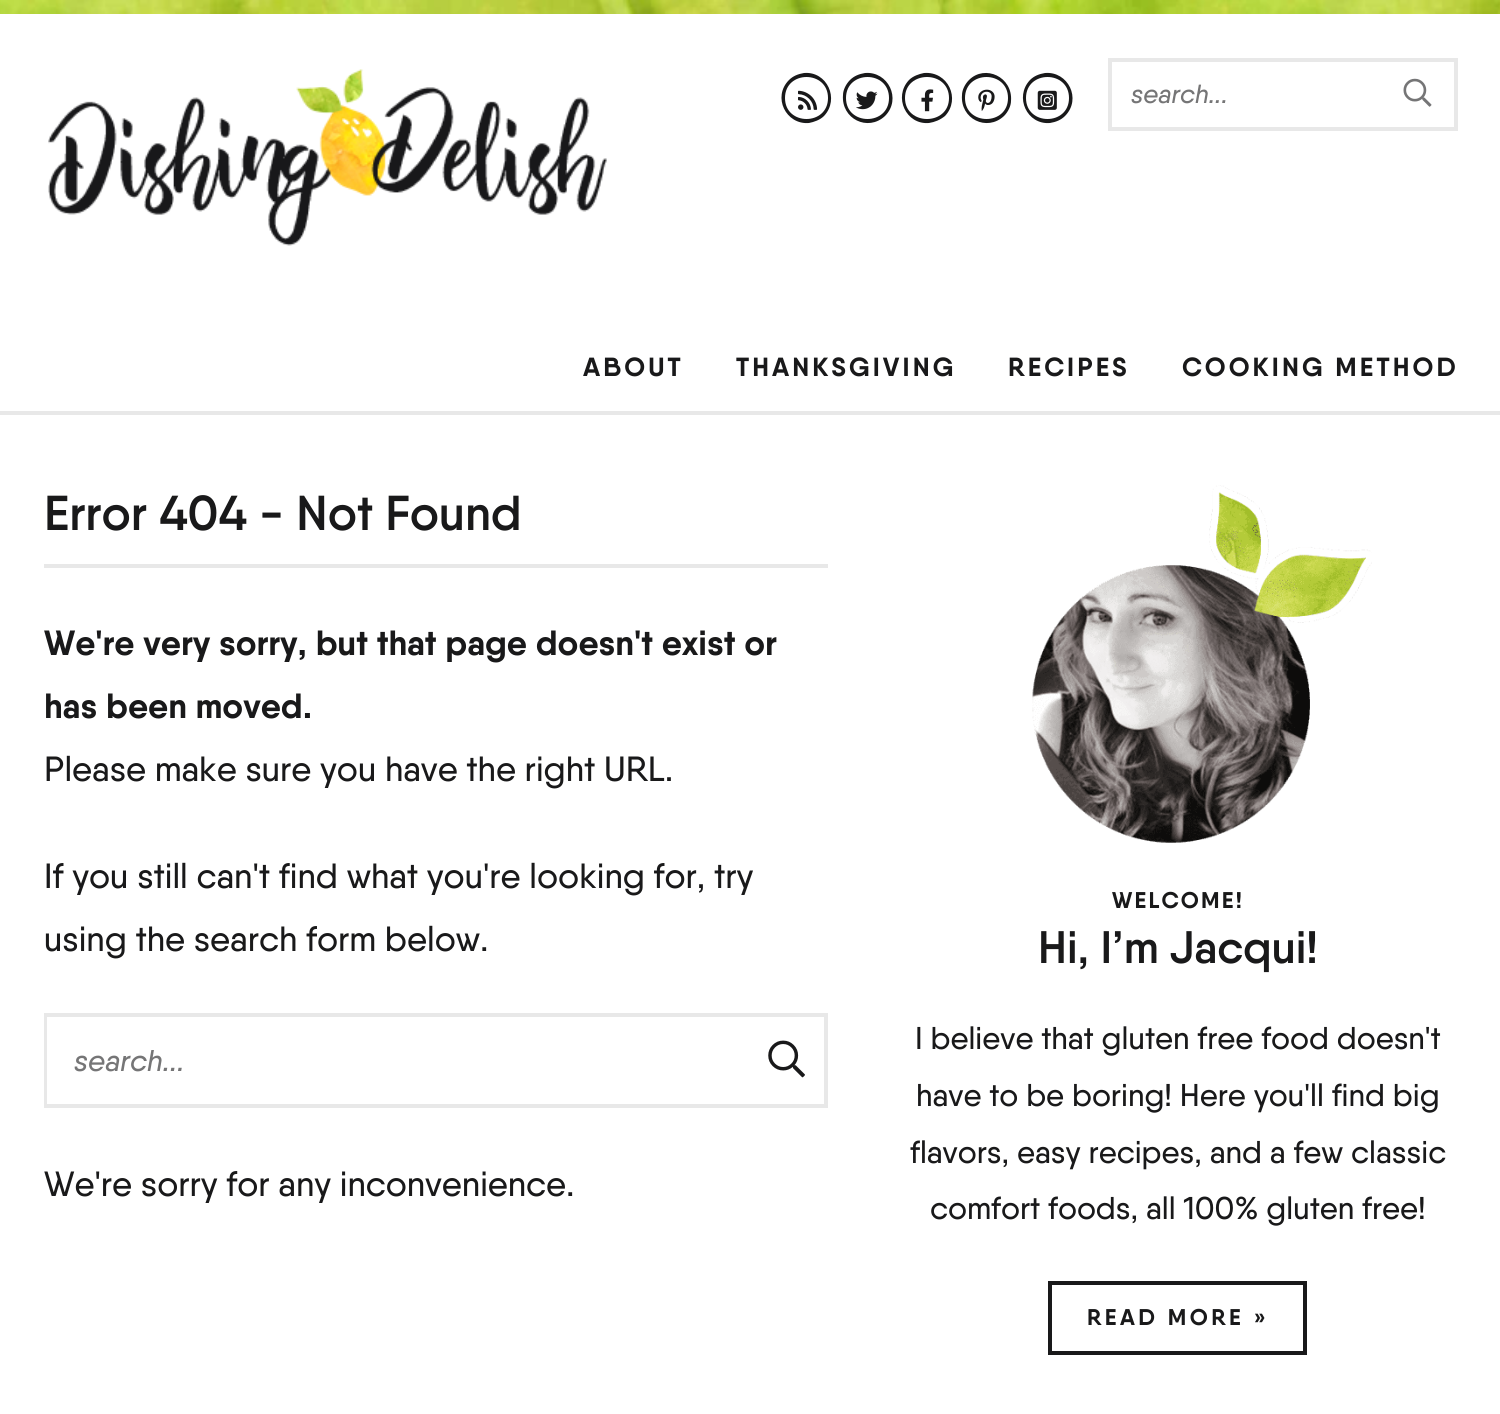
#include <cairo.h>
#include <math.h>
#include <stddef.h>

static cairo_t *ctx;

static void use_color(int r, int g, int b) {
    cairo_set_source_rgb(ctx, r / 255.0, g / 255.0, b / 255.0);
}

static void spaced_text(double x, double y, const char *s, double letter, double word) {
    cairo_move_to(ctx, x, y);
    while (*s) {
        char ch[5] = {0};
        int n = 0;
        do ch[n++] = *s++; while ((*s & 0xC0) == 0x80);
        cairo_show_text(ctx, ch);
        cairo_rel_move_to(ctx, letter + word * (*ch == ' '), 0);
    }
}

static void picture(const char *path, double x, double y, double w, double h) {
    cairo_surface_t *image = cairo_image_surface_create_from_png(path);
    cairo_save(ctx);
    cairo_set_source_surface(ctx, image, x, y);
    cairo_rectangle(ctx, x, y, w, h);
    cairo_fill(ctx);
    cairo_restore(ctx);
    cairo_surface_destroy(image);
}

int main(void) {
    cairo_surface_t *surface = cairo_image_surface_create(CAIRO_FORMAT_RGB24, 1500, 1414);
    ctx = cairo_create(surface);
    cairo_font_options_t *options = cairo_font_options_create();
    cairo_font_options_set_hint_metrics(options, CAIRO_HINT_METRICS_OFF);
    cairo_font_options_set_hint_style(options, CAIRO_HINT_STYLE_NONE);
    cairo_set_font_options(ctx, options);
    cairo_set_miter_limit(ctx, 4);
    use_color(255, 255, 255);
    cairo_paint(ctx);
    picture("img1.png", 0, 0, 1500, 14);
    use_color(232, 232, 232);
    cairo_rectangle(ctx, 0, 411, 1500, 4);
    cairo_fill(ctx);
    picture("img2.png", 48, 69, 559, 177);
    use_color(25, 25, 26);
    cairo_new_path(ctx);
    cairo_move_to(ctx, 789, 80);
    cairo_curve_to(ctx, 793, 76, 798, 74, 804, 73);
    cairo_curve_to(ctx, 827, 71, 840, 99, 824, 116);
    cairo_curve_to(ctx, 820, 120, 814, 122, 809, 123);
    cairo_curve_to(ctx, 786, 125, 772, 97, 789, 80);
    cairo_close_path(ctx);
    cairo_move_to(ctx, 828, 98);
    cairo_curve_to(ctx, 828, 70, 785, 70, 785, 98);
    cairo_curve_to(ctx, 785, 126, 828, 126, 828, 98);
    cairo_close_path(ctx);
    cairo_fill(ctx);
    picture("img3.png", 798, 90, 20, 20);
    cairo_new_path(ctx);
    cairo_move_to(ctx, 850, 80);
    cairo_curve_to(ctx, 854, 76, 859, 74, 865, 73);
    cairo_curve_to(ctx, 888, 71, 902, 99, 885, 116);
    cairo_curve_to(ctx, 868, 132, 841, 119, 843, 95);
    cairo_curve_to(ctx, 843, 90, 846, 84, 850, 80);
    cairo_close_path(ctx);
    cairo_move_to(ctx, 889, 98);
    cairo_curve_to(ctx, 889, 70, 846, 70, 846, 98);
    cairo_curve_to(ctx, 846, 126, 889, 126, 889, 98);
    cairo_close_path(ctx);
    cairo_fill(ctx);
    picture("img4.png", 856, 91, 22, 19);
    cairo_new_path(ctx);
    cairo_move_to(ctx, 909, 80);
    cairo_curve_to(ctx, 913, 76, 919, 74, 924, 73);
    cairo_curve_to(ctx, 948, 71, 961, 99, 945, 116);
    cairo_curve_to(ctx, 940, 120, 935, 122, 929, 123);
    cairo_curve_to(ctx, 906, 125, 893, 97, 909, 80);
    cairo_close_path(ctx);
    cairo_move_to(ctx, 949, 98);
    cairo_curve_to(ctx, 949, 70, 905, 70, 905, 98);
    cairo_curve_to(ctx, 905, 126, 949, 126, 949, 98);
    cairo_close_path(ctx);
    cairo_fill(ctx);
    picture("img5.png", 921, 89, 13, 23);
    cairo_new_path(ctx);
    cairo_move_to(ctx, 969, 80);
    cairo_curve_to(ctx, 985, 64, 1013, 77, 1011, 101);
    cairo_curve_to(ctx, 1011, 106, 1008, 112, 1004, 116);
    cairo_curve_to(ctx, 987, 132, 960, 119, 962, 95);
    cairo_curve_to(ctx, 962, 90, 965, 84, 969, 80);
    cairo_close_path(ctx);
    cairo_move_to(ctx, 1008, 98);
    cairo_curve_to(ctx, 1008, 70, 965, 70, 965, 98);
    cairo_curve_to(ctx, 965, 126, 1008, 126, 1008, 98);
    cairo_close_path(ctx);
    cairo_fill(ctx);
    picture("img6.png", 978, 89, 17, 22);
    cairo_new_path(ctx);
    cairo_move_to(ctx, 1030, 80);
    cairo_curve_to(ctx, 1034, 76, 1039, 74, 1045, 73);
    cairo_curve_to(ctx, 1068, 71, 1082, 99, 1065, 116);
    cairo_curve_to(ctx, 1061, 120, 1056, 122, 1050, 123);
    cairo_curve_to(ctx, 1027, 125, 1014, 97, 1030, 80);
    cairo_close_path(ctx);
    cairo_move_to(ctx, 1069, 98);
    cairo_curve_to(ctx, 1069, 70, 1026, 70, 1026, 98);
    cairo_curve_to(ctx, 1026, 126, 1069, 126, 1069, 98);
    cairo_close_path(ctx);
    cairo_fill(ctx);
    picture("img7.png", 1037, 90, 20, 20);
    cairo_rectangle(ctx, 1110, 60, 346, 69);
    use_color(232, 232, 232);
    cairo_set_line_width(ctx, 4);
    cairo_stroke(ctx);
    cairo_select_font_face(ctx, "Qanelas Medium", CAIRO_FONT_SLANT_ITALIC, CAIRO_FONT_WEIGHT_NORMAL);
    cairo_set_font_size(ctx, 26.25);
    use_color(117, 117, 118);
    cairo_move_to(ctx, 1131, 103);
    cairo_show_text(ctx, "search...");
    picture("img8.png", 1403, 78, 29, 29);
    cairo_select_font_face(ctx, "Qanelas", CAIRO_FONT_SLANT_NORMAL, CAIRO_FONT_WEIGHT_BOLD);
    use_color(25, 25, 26);
    spaced_text(583, 376, "ABOUT", 3.1, 0);
    spaced_text(736, 376, "THANKSGIVING", 3.1, 0);
    spaced_text(1008, 376, "RECIPES", 3.1, 0);
    spaced_text(1182, 376, "COOKING METHOD", 3.1, 0);
    use_color(232, 232, 232);
    cairo_rectangle(ctx, 44, 564, 784, 4);
    cairo_fill(ctx);
    cairo_select_font_face(ctx, "Qanelas SemiBold", CAIRO_FONT_SLANT_NORMAL, CAIRO_FONT_WEIGHT_NORMAL);
    cairo_set_font_size(ctx, 49);
    use_color(25, 25, 26);
    cairo_move_to(ctx, 44, 530);
    cairo_show_text(ctx, "Error 404 - Not Found");
    cairo_select_font_face(ctx, "Qanelas", CAIRO_FONT_SLANT_NORMAL, CAIRO_FONT_WEIGHT_BOLD);
    cairo_set_font_size(ctx, 35);
    cairo_move_to(ctx, 44, 655);
    cairo_show_text(ctx, "We're very sorry, but that page doesn't exist or");
    cairo_move_to(ctx, 44, 718);
    cairo_show_text(ctx, "has been moved.");
    cairo_select_font_face(ctx, "Qanelas Medium", CAIRO_FONT_SLANT_NORMAL, CAIRO_FONT_WEIGHT_NORMAL);
    cairo_move_to(ctx, 44, 781);
    cairo_show_text(ctx, "Please make sure you have the right URL.");
    cairo_move_to(ctx, 44, 888);
    cairo_show_text(ctx, "If you still can't find what you're looking for, try");
    cairo_move_to(ctx, 44, 951);
    cairo_show_text(ctx, "using the search form below.");
    cairo_rectangle(ctx, 46, 1015, 780, 91);
    use_color(232, 232, 232);
    cairo_stroke(ctx);
    use_color(255, 255, 255);
    cairo_rectangle(ctx, 47, 1017, 1, 87);
    cairo_fill(ctx);
    cairo_select_font_face(ctx, "Qanelas Medium", CAIRO_FONT_SLANT_ITALIC, CAIRO_FONT_WEIGHT_NORMAL);
    cairo_set_font_size(ctx, 30);
    use_color(117, 117, 118);
    cairo_move_to(ctx, 74, 1071);
    cairo_show_text(ctx, "search...");
    picture("img9.png", 768, 1040, 37, 38);
    cairo_select_font_face(ctx, "Qanelas Medium", CAIRO_FONT_SLANT_NORMAL, CAIRO_FONT_WEIGHT_NORMAL);
    cairo_set_font_size(ctx, 35);
    use_color(25, 25, 26);
    cairo_move_to(ctx, 44, 1196);
    cairo_show_text(ctx, "We're sorry for any inconvenience.");
    picture("img10.png", 1032, 485, 340, 358);
    cairo_select_font_face(ctx, "Qanelas", CAIRO_FONT_SLANT_NORMAL, CAIRO_FONT_WEIGHT_BOLD);
    cairo_set_font_size(ctx, 22.75);
    spaced_text(1112, 908, "WELCOME!", 2.25, 0);
    cairo_select_font_face(ctx, "Qanelas SemiBold", CAIRO_FONT_SLANT_NORMAL, CAIRO_FONT_WEIGHT_NORMAL);
    cairo_set_font_size(ctx, 45.5);
    cairo_move_to(ctx, 1038, 963);
    cairo_show_text(ctx, "Hi, I’m Jacqui!");
    cairo_select_font_face(ctx, "Qanelas Medium", CAIRO_FONT_SLANT_NORMAL, CAIRO_FONT_WEIGHT_NORMAL);
    cairo_set_font_size(ctx, 31.5);
    cairo_move_to(ctx, 915, 1049);
    cairo_show_text(ctx, "I believe that gluten free food doesn't");
    cairo_move_to(ctx, 916, 1106);
    cairo_show_text(ctx, "have to be boring! Here you'll find big");
    cairo_move_to(ctx, 910, 1163);
    cairo_show_text(ctx, "flavors, easy recipes, and a few classic");
    cairo_move_to(ctx, 930, 1219);
    cairo_show_text(ctx, "comfort foods, all 100% gluten free!");
    cairo_rectangle(ctx, 1050, 1283, 255, 70);
    cairo_stroke(ctx);
    cairo_select_font_face(ctx, "Qanelas", CAIRO_FONT_SLANT_NORMAL, CAIRO_FONT_WEIGHT_BOLD);
    cairo_set_font_size(ctx, 22.75);
    spaced_text(1087, 1325, "READ MORE »", 3.5, 0);
    cairo_surface_write_to_png(surface, "result.png");
    cairo_font_options_destroy(options);
    cairo_destroy(ctx);
    cairo_surface_destroy(surface);
    return 0;
}
